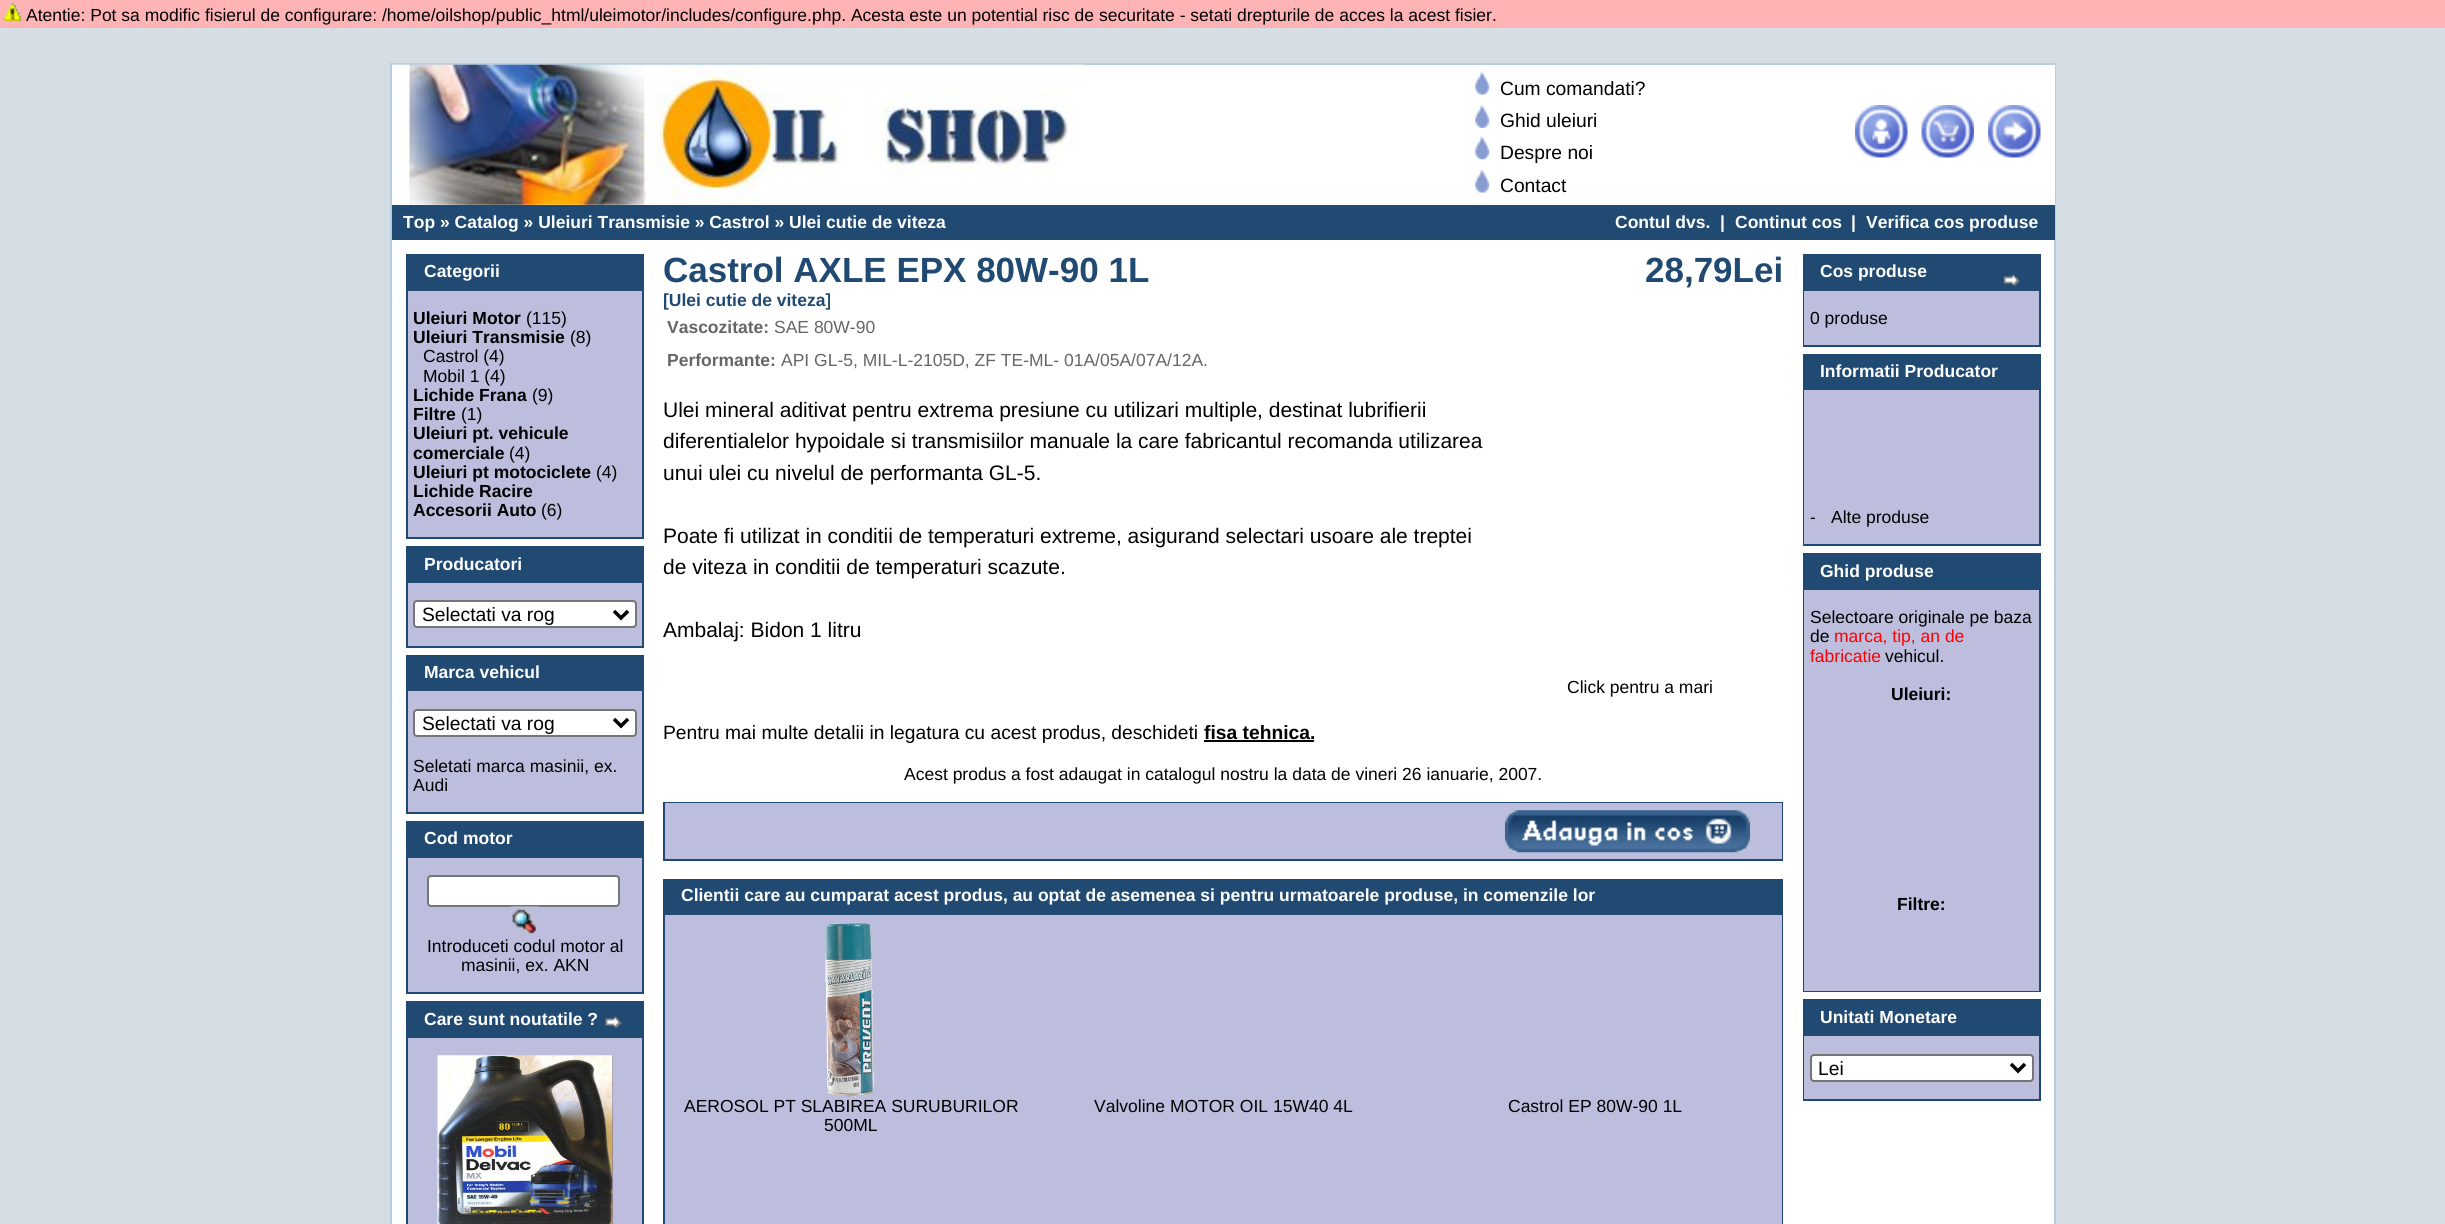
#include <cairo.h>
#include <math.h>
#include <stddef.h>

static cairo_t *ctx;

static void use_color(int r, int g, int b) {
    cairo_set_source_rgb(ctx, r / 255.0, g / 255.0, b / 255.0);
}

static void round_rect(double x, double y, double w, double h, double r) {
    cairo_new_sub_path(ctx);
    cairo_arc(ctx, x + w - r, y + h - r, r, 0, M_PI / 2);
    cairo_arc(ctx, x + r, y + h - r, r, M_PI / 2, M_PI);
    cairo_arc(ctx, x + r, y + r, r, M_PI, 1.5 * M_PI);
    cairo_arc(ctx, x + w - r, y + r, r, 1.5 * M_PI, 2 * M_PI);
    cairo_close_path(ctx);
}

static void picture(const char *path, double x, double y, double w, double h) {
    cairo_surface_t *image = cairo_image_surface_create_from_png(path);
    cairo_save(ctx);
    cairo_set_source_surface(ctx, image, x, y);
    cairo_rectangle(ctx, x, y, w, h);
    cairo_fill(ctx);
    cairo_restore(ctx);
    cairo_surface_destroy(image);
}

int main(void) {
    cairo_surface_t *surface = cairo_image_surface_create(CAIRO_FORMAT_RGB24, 2445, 1224);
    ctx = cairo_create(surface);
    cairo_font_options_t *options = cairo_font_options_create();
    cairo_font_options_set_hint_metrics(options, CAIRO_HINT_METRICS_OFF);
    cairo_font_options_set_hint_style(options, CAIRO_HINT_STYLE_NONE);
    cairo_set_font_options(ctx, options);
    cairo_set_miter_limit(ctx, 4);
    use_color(214, 222, 229);
    cairo_paint(ctx);
    use_color(255, 179, 181);
    cairo_rectangle(ctx, 0, 0, 2445, 28);
    cairo_fill(ctx);
    picture("img1.png", 3, 3, 18, 18);
    cairo_select_font_face(ctx, "Liberation Sans", CAIRO_FONT_SLANT_NORMAL, CAIRO_FONT_WEIGHT_NORMAL);
    cairo_set_font_size(ctx, 17.5);
    use_color(0, 0, 0);
    cairo_move_to(ctx, 26, 21);
    cairo_show_text(ctx, "Atentie: Pot sa modific fisierul de configurare: /home/oilshop/public_html/uleimotor/includes/configure.php. Acesta este un potential risc de securitate - setati drepturile de acces la acest fisier.");
    use_color(255, 255, 255);
    cairo_rectangle(ctx, 392, 240, 1662, 984);
    cairo_fill(ctx);
    cairo_rectangle(ctx, 391, 64, 1664, 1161);
    use_color(184, 205, 224);
    cairo_stroke(ctx);
    use_color(255, 255, 255);
    cairo_rectangle(ctx, 392, 65, 1663, 140);
    cairo_fill(ctx);
    picture("img2.png", 392, 64, 692, 141);
    picture("img3.png", 1475, 71, 15, 24);
    cairo_set_font_size(ctx, 19.25);
    use_color(0, 0, 0);
    cairo_move_to(ctx, 1500, 95);
    cairo_show_text(ctx, "Cum comandati?");
    picture("img4.png", 1475, 104, 15, 24);
    cairo_move_to(ctx, 1500, 127);
    cairo_show_text(ctx, "Ghid uleiuri");
    picture("img5.png", 1475, 136, 15, 24);
    cairo_move_to(ctx, 1500, 159);
    cairo_show_text(ctx, "Despre noi");
    picture("img3.png", 1475, 169, 15, 24);
    cairo_move_to(ctx, 1500, 192);
    cairo_show_text(ctx, "Contact");
    picture("img6.png", 1855, 105, 53, 53);
    picture("img7.png", 1921, 105, 53, 53);
    picture("img8.png", 1988, 105, 53, 53);
    use_color(33, 74, 115);
    cairo_rectangle(ctx, 392, 205, 1663, 35);
    cairo_fill(ctx);
    cairo_select_font_face(ctx, "Liberation Sans", CAIRO_FONT_SLANT_NORMAL, CAIRO_FONT_WEIGHT_BOLD);
    cairo_set_font_size(ctx, 17.5);
    use_color(255, 255, 255);
    cairo_move_to(ctx, 403, 228);
    cairo_show_text(ctx, "Top » Catalog » Uleiuri Transmisie » Castrol » Ulei cutie de viteza");
    cairo_move_to(ctx, 1615, 228);
    cairo_show_text(ctx, "Contul dvs.");
    cairo_move_to(ctx, 1720, 228);
    cairo_show_text(ctx, "|");
    cairo_move_to(ctx, 1735, 228);
    cairo_show_text(ctx, "Continut cos");
    cairo_move_to(ctx, 1851, 228);
    cairo_show_text(ctx, "|");
    cairo_move_to(ctx, 1866, 228);
    cairo_show_text(ctx, "Verifica cos produse");
    use_color(33, 74, 115);
    cairo_rectangle(ctx, 406, 254, 238, 285);
    cairo_fill(ctx);
    use_color(255, 255, 255);
    cairo_move_to(ctx, 424, 277);
    cairo_show_text(ctx, "Categorii");
    use_color(189, 189, 222);
    cairo_rectangle(ctx, 408, 291, 234, 246);
    cairo_fill(ctx);
    use_color(0, 0, 0);
    cairo_move_to(ctx, 413, 324);
    cairo_show_text(ctx, "Uleiuri Motor");
    cairo_select_font_face(ctx, "Liberation Sans", CAIRO_FONT_SLANT_NORMAL, CAIRO_FONT_WEIGHT_NORMAL);
    cairo_move_to(ctx, 526, 324);
    cairo_show_text(ctx, "(115)");
    cairo_select_font_face(ctx, "Liberation Sans", CAIRO_FONT_SLANT_NORMAL, CAIRO_FONT_WEIGHT_BOLD);
    cairo_move_to(ctx, 413, 343);
    cairo_show_text(ctx, "Uleiuri Transmisie");
    cairo_select_font_face(ctx, "Liberation Sans", CAIRO_FONT_SLANT_NORMAL, CAIRO_FONT_WEIGHT_NORMAL);
    cairo_move_to(ctx, 570, 343);
    cairo_show_text(ctx, "(8)");
    cairo_move_to(ctx, 423, 362);
    cairo_show_text(ctx, "Castrol (4)");
    cairo_move_to(ctx, 423, 382);
    cairo_show_text(ctx, "Mobil 1 (4)");
    cairo_select_font_face(ctx, "Liberation Sans", CAIRO_FONT_SLANT_NORMAL, CAIRO_FONT_WEIGHT_BOLD);
    cairo_move_to(ctx, 413, 401);
    cairo_show_text(ctx, "Lichide Frana");
    cairo_select_font_face(ctx, "Liberation Sans", CAIRO_FONT_SLANT_NORMAL, CAIRO_FONT_WEIGHT_NORMAL);
    cairo_move_to(ctx, 532, 401);
    cairo_show_text(ctx, "(9)");
    cairo_select_font_face(ctx, "Liberation Sans", CAIRO_FONT_SLANT_NORMAL, CAIRO_FONT_WEIGHT_BOLD);
    cairo_move_to(ctx, 413, 420);
    cairo_show_text(ctx, "Filtre");
    cairo_select_font_face(ctx, "Liberation Sans", CAIRO_FONT_SLANT_NORMAL, CAIRO_FONT_WEIGHT_NORMAL);
    cairo_move_to(ctx, 461, 420);
    cairo_show_text(ctx, "(1)");
    cairo_select_font_face(ctx, "Liberation Sans", CAIRO_FONT_SLANT_NORMAL, CAIRO_FONT_WEIGHT_BOLD);
    cairo_move_to(ctx, 413, 439);
    cairo_show_text(ctx, "Uleiuri pt. vehicule");
    cairo_move_to(ctx, 413, 459);
    cairo_show_text(ctx, "comerciale");
    cairo_select_font_face(ctx, "Liberation Sans", CAIRO_FONT_SLANT_NORMAL, CAIRO_FONT_WEIGHT_NORMAL);
    cairo_move_to(ctx, 509, 459);
    cairo_show_text(ctx, "(4)");
    cairo_select_font_face(ctx, "Liberation Sans", CAIRO_FONT_SLANT_NORMAL, CAIRO_FONT_WEIGHT_BOLD);
    cairo_move_to(ctx, 413, 478);
    cairo_show_text(ctx, "Uleiuri pt motociclete");
    cairo_select_font_face(ctx, "Liberation Sans", CAIRO_FONT_SLANT_NORMAL, CAIRO_FONT_WEIGHT_NORMAL);
    cairo_move_to(ctx, 596, 478);
    cairo_show_text(ctx, "(4)");
    cairo_select_font_face(ctx, "Liberation Sans", CAIRO_FONT_SLANT_NORMAL, CAIRO_FONT_WEIGHT_BOLD);
    cairo_move_to(ctx, 413, 497);
    cairo_show_text(ctx, "Lichide Racire");
    cairo_move_to(ctx, 413, 516);
    cairo_show_text(ctx, "Accesorii Auto");
    cairo_select_font_face(ctx, "Liberation Sans", CAIRO_FONT_SLANT_NORMAL, CAIRO_FONT_WEIGHT_NORMAL);
    cairo_move_to(ctx, 541, 516);
    cairo_show_text(ctx, "(6)");
    use_color(33, 74, 115);
    cairo_rectangle(ctx, 406, 546, 238, 102);
    cairo_fill(ctx);
    cairo_select_font_face(ctx, "Liberation Sans", CAIRO_FONT_SLANT_NORMAL, CAIRO_FONT_WEIGHT_BOLD);
    use_color(255, 255, 255);
    cairo_move_to(ctx, 424, 570);
    cairo_show_text(ctx, "Producatori");
    use_color(189, 189, 222);
    cairo_rectangle(ctx, 408, 583, 234, 63);
    cairo_fill(ctx);
    use_color(255, 255, 255);
    round_rect(414, 601, 222, 26, 3);
    cairo_fill_preserve(ctx);
    use_color(118, 118, 118);
    cairo_stroke(ctx);
    cairo_new_path(ctx);
    cairo_move_to(ctx, 614, 611);
    cairo_line_to(ctx, 621, 618);
    cairo_line_to(ctx, 628, 611);
    use_color(0, 0, 0);
    cairo_set_line_width(ctx, 3.5);
    cairo_stroke(ctx);
    cairo_select_font_face(ctx, "Liberation Sans", CAIRO_FONT_SLANT_NORMAL, CAIRO_FONT_WEIGHT_NORMAL);
    cairo_set_font_size(ctx, 19.25);
    cairo_move_to(ctx, 422, 621);
    cairo_show_text(ctx, "Selectati va rog");
    use_color(33, 74, 115);
    cairo_rectangle(ctx, 406, 655, 238, 159);
    cairo_fill(ctx);
    cairo_select_font_face(ctx, "Liberation Sans", CAIRO_FONT_SLANT_NORMAL, CAIRO_FONT_WEIGHT_BOLD);
    cairo_set_font_size(ctx, 17.5);
    use_color(255, 255, 255);
    cairo_move_to(ctx, 424, 678);
    cairo_show_text(ctx, "Marca vehicul");
    use_color(189, 189, 222);
    cairo_rectangle(ctx, 408, 691, 234, 121);
    cairo_fill(ctx);
    use_color(255, 255, 255);
    round_rect(414, 710, 222, 26, 3);
    cairo_fill_preserve(ctx);
    use_color(118, 118, 118);
    cairo_set_line_width(ctx, 2);
    cairo_stroke(ctx);
    cairo_new_path(ctx);
    cairo_move_to(ctx, 614, 719);
    cairo_line_to(ctx, 621, 726);
    cairo_line_to(ctx, 628, 719);
    use_color(0, 0, 0);
    cairo_set_line_width(ctx, 3.5);
    cairo_stroke(ctx);
    cairo_select_font_face(ctx, "Liberation Sans", CAIRO_FONT_SLANT_NORMAL, CAIRO_FONT_WEIGHT_NORMAL);
    cairo_set_font_size(ctx, 19.25);
    cairo_move_to(ctx, 422, 730);
    cairo_show_text(ctx, "Selectati va rog");
    cairo_set_font_size(ctx, 17.5);
    cairo_move_to(ctx, 413, 772);
    cairo_show_text(ctx, "Seletati marca masinii, ex.");
    cairo_move_to(ctx, 413, 791);
    cairo_show_text(ctx, "Audi");
    use_color(33, 74, 115);
    cairo_rectangle(ctx, 406, 821, 238, 173);
    cairo_fill(ctx);
    cairo_select_font_face(ctx, "Liberation Sans", CAIRO_FONT_SLANT_NORMAL, CAIRO_FONT_WEIGHT_BOLD);
    use_color(255, 255, 255);
    cairo_move_to(ctx, 424, 844);
    cairo_show_text(ctx, "Cod motor");
    use_color(189, 189, 222);
    cairo_rectangle(ctx, 408, 858, 234, 134);
    cairo_fill(ctx);
    use_color(255, 255, 255);
    round_rect(428, 876, 191, 30, 3);
    cairo_fill_preserve(ctx);
    use_color(118, 118, 118);
    cairo_set_line_width(ctx, 2);
    cairo_stroke(ctx);
    picture("img9.png", 511, 906, 28, 28);
    cairo_select_font_face(ctx, "Liberation Sans", CAIRO_FONT_SLANT_NORMAL, CAIRO_FONT_WEIGHT_NORMAL);
    use_color(0, 0, 0);
    cairo_move_to(ctx, 427, 952);
    cairo_show_text(ctx, "Introduceti codul motor al");
    cairo_move_to(ctx, 461, 971);
    cairo_show_text(ctx, "masinii, ex. AKN");
    use_color(33, 74, 115);
    cairo_rectangle(ctx, 406, 1001, 238, 223);
    cairo_fill(ctx);
    cairo_select_font_face(ctx, "Liberation Sans", CAIRO_FONT_SLANT_NORMAL, CAIRO_FONT_WEIGHT_BOLD);
    use_color(255, 255, 255);
    cairo_move_to(ctx, 424, 1025);
    cairo_show_text(ctx, "Care sunt noutatile ?");
    picture("img10.png", 605, 1016, 17, 12);
    use_color(189, 189, 222);
    cairo_rectangle(ctx, 408, 1038, 234, 186);
    cairo_fill(ctx);
    picture("img11.png", 437, 1055, 176, 169);
    cairo_set_font_size(ctx, 35);
    use_color(33, 74, 115);
    cairo_move_to(ctx, 663, 282);
    cairo_show_text(ctx, "Castrol AXLE EPX 80W-90 1L");
    cairo_set_font_size(ctx, 17.5);
    cairo_move_to(ctx, 663, 306);
    cairo_show_text(ctx, "[Ulei cutie de viteza]");
    cairo_set_font_size(ctx, 35);
    cairo_move_to(ctx, 1645, 282);
    cairo_show_text(ctx, "28,79Lei");
    cairo_set_font_size(ctx, 17.5);
    use_color(102, 102, 102);
    cairo_move_to(ctx, 667, 333);
    cairo_show_text(ctx, "Vascozitate:");
    cairo_select_font_face(ctx, "Liberation Sans", CAIRO_FONT_SLANT_NORMAL, CAIRO_FONT_WEIGHT_NORMAL);
    cairo_move_to(ctx, 774, 333);
    cairo_show_text(ctx, "SAE 80W-90");
    cairo_select_font_face(ctx, "Liberation Sans", CAIRO_FONT_SLANT_NORMAL, CAIRO_FONT_WEIGHT_BOLD);
    cairo_move_to(ctx, 667, 366);
    cairo_show_text(ctx, "Performante:");
    cairo_select_font_face(ctx, "Liberation Sans", CAIRO_FONT_SLANT_NORMAL, CAIRO_FONT_WEIGHT_NORMAL);
    cairo_move_to(ctx, 781, 366);
    cairo_show_text(ctx, "API GL-5, MIL-L-2105D, ZF TE-ML- 01A/05A/07A/12A.");
    cairo_set_font_size(ctx, 21);
    use_color(0, 0, 0);
    cairo_move_to(ctx, 663, 417);
    cairo_show_text(ctx, "Ulei mineral aditivat pentru extrema presiune cu utilizari multiple, destinat lubrifierii");
    cairo_move_to(ctx, 663, 448);
    cairo_show_text(ctx, "diferentialelor hypoidale si transmisiilor manuale la care fabricantul recomanda utilizarea");
    cairo_move_to(ctx, 663, 480);
    cairo_show_text(ctx, "unui ulei cu nivelul de performanta GL-5.");
    cairo_move_to(ctx, 663, 543);
    cairo_show_text(ctx, "Poate fi utilizat in conditii de temperaturi extreme, asigurand selectari usoare ale treptei");
    cairo_move_to(ctx, 663, 574);
    cairo_show_text(ctx, "de viteza in conditii de temperaturi scazute.");
    cairo_move_to(ctx, 663, 637);
    cairo_show_text(ctx, "Ambalaj: Bidon 1 litru");
    cairo_set_font_size(ctx, 17.5);
    cairo_move_to(ctx, 1567, 693);
    cairo_show_text(ctx, "Click pentru a mari");
    cairo_set_font_size(ctx, 19.25);
    cairo_move_to(ctx, 663, 739);
    cairo_show_text(ctx, "Pentru mai multe detalii in legatura cu acest produs, deschideti");
    cairo_select_font_face(ctx, "Liberation Sans", CAIRO_FONT_SLANT_NORMAL, CAIRO_FONT_WEIGHT_BOLD);
    cairo_move_to(ctx, 1204, 739);
    cairo_show_text(ctx, "fisa tehnica.");
    cairo_rectangle(ctx, 1204, 740, 110, 2);
    cairo_fill(ctx);
    cairo_select_font_face(ctx, "Liberation Sans", CAIRO_FONT_SLANT_NORMAL, CAIRO_FONT_WEIGHT_NORMAL);
    cairo_set_font_size(ctx, 17.5);
    cairo_move_to(ctx, 904, 780);
    cairo_show_text(ctx, "Acest produs a fost adaugat in catalogul nostru la data de vineri 26 ianuarie, 2007.");
    use_color(33, 74, 115);
    cairo_rectangle(ctx, 663, 802, 1120, 59);
    cairo_fill(ctx);
    use_color(189, 189, 222);
    cairo_rectangle(ctx, 665, 803, 1117, 56);
    cairo_fill(ctx);
    picture("img12.png", 1505, 810, 245, 43);
    use_color(33, 74, 115);
    cairo_rectangle(ctx, 663, 879, 1120, 345);
    cairo_fill(ctx);
    cairo_select_font_face(ctx, "Liberation Sans", CAIRO_FONT_SLANT_NORMAL, CAIRO_FONT_WEIGHT_BOLD);
    use_color(255, 255, 255);
    cairo_move_to(ctx, 681, 901);
    cairo_show_text(ctx, "Clientii care au cumparat acest produs, au optat de asemenea si pentru urmatoarele produse, in comenzile lor");
    use_color(189, 189, 222);
    cairo_rectangle(ctx, 665, 915, 1117, 309);
    cairo_fill(ctx);
    picture("img13.png", 825, 923, 49, 174);
    cairo_select_font_face(ctx, "Liberation Sans", CAIRO_FONT_SLANT_NORMAL, CAIRO_FONT_WEIGHT_NORMAL);
    use_color(0, 0, 0);
    cairo_move_to(ctx, 684, 1112);
    cairo_show_text(ctx, "AEROSOL PT SLABIREA SURUBURILOR");
    cairo_move_to(ctx, 824, 1131);
    cairo_show_text(ctx, "500ML");
    cairo_move_to(ctx, 1094, 1112);
    cairo_show_text(ctx, "Valvoline MOTOR OIL 15W40 4L");
    cairo_move_to(ctx, 1508, 1112);
    cairo_show_text(ctx, "Castrol EP 80W-90 1L");
    use_color(33, 74, 115);
    cairo_rectangle(ctx, 1803, 254, 238, 93);
    cairo_fill(ctx);
    cairo_select_font_face(ctx, "Liberation Sans", CAIRO_FONT_SLANT_NORMAL, CAIRO_FONT_WEIGHT_BOLD);
    use_color(255, 255, 255);
    cairo_move_to(ctx, 1820, 277);
    cairo_show_text(ctx, "Cos produse");
    picture("img14.png", 2003, 274, 17, 12);
    use_color(189, 189, 222);
    cairo_rectangle(ctx, 1804, 291, 235, 54);
    cairo_fill(ctx);
    cairo_select_font_face(ctx, "Liberation Sans", CAIRO_FONT_SLANT_NORMAL, CAIRO_FONT_WEIGHT_NORMAL);
    use_color(0, 0, 0);
    cairo_move_to(ctx, 1810, 324);
    cairo_show_text(ctx, "0 produse");
    use_color(33, 74, 115);
    cairo_rectangle(ctx, 1803, 354, 238, 192);
    cairo_fill(ctx);
    cairo_select_font_face(ctx, "Liberation Sans", CAIRO_FONT_SLANT_NORMAL, CAIRO_FONT_WEIGHT_BOLD);
    use_color(255, 255, 255);
    cairo_move_to(ctx, 1820, 377);
    cairo_show_text(ctx, "Informatii Producator");
    use_color(189, 189, 222);
    cairo_rectangle(ctx, 1804, 390, 235, 154);
    cairo_fill(ctx);
    cairo_select_font_face(ctx, "Liberation Sans", CAIRO_FONT_SLANT_NORMAL, CAIRO_FONT_WEIGHT_NORMAL);
    use_color(0, 0, 0);
    cairo_move_to(ctx, 1810, 523);
    cairo_show_text(ctx, "-");
    cairo_move_to(ctx, 1831, 523);
    cairo_show_text(ctx, "Alte produse");
    use_color(33, 74, 115);
    cairo_rectangle(ctx, 1803, 553, 238, 439);
    cairo_fill(ctx);
    cairo_select_font_face(ctx, "Liberation Sans", CAIRO_FONT_SLANT_NORMAL, CAIRO_FONT_WEIGHT_BOLD);
    use_color(255, 255, 255);
    cairo_move_to(ctx, 1820, 577);
    cairo_show_text(ctx, "Ghid produse");
    use_color(189, 189, 222);
    cairo_rectangle(ctx, 1804, 590, 235, 401);
    cairo_fill(ctx);
    cairo_select_font_face(ctx, "Liberation Sans", CAIRO_FONT_SLANT_NORMAL, CAIRO_FONT_WEIGHT_NORMAL);
    use_color(0, 0, 0);
    cairo_move_to(ctx, 1810, 623);
    cairo_show_text(ctx, "Selectoare originale pe baza");
    cairo_move_to(ctx, 1810, 642);
    cairo_show_text(ctx, "de");
    use_color(255, 0, 0);
    cairo_move_to(ctx, 1834, 642);
    cairo_show_text(ctx, "marca, tip, an de");
    cairo_move_to(ctx, 1810, 662);
    cairo_show_text(ctx, "fabricatie");
    use_color(0, 0, 0);
    cairo_move_to(ctx, 1885, 662);
    cairo_show_text(ctx, "vehicul.");
    cairo_select_font_face(ctx, "Liberation Sans", CAIRO_FONT_SLANT_NORMAL, CAIRO_FONT_WEIGHT_BOLD);
    cairo_move_to(ctx, 1891, 700);
    cairo_show_text(ctx, "Uleiuri:");
    cairo_move_to(ctx, 1897, 910);
    cairo_show_text(ctx, "Filtre:");
    use_color(33, 74, 115);
    cairo_rectangle(ctx, 1803, 999, 238, 102);
    cairo_fill(ctx);
    use_color(255, 255, 255);
    cairo_move_to(ctx, 1820, 1023);
    cairo_show_text(ctx, "Unitati Monetare");
    use_color(189, 189, 222);
    cairo_rectangle(ctx, 1804, 1036, 235, 63);
    cairo_fill(ctx);
    use_color(255, 255, 255);
    round_rect(1811, 1055, 222, 26, 3);
    cairo_fill_preserve(ctx);
    use_color(118, 118, 118);
    cairo_stroke(ctx);
    cairo_new_path(ctx);
    cairo_move_to(ctx, 2011, 1064);
    cairo_line_to(ctx, 2018, 1071);
    cairo_line_to(ctx, 2025, 1064);
    use_color(0, 0, 0);
    cairo_set_line_width(ctx, 3.5);
    cairo_stroke(ctx);
    cairo_select_font_face(ctx, "Liberation Sans", CAIRO_FONT_SLANT_NORMAL, CAIRO_FONT_WEIGHT_NORMAL);
    cairo_set_font_size(ctx, 19.25);
    cairo_move_to(ctx, 1818, 1075);
    cairo_show_text(ctx, "Lei");
    cairo_surface_write_to_png(surface, "result.png");
    cairo_font_options_destroy(options);
    cairo_destroy(ctx);
    cairo_surface_destroy(surface);
    return 0;
}
